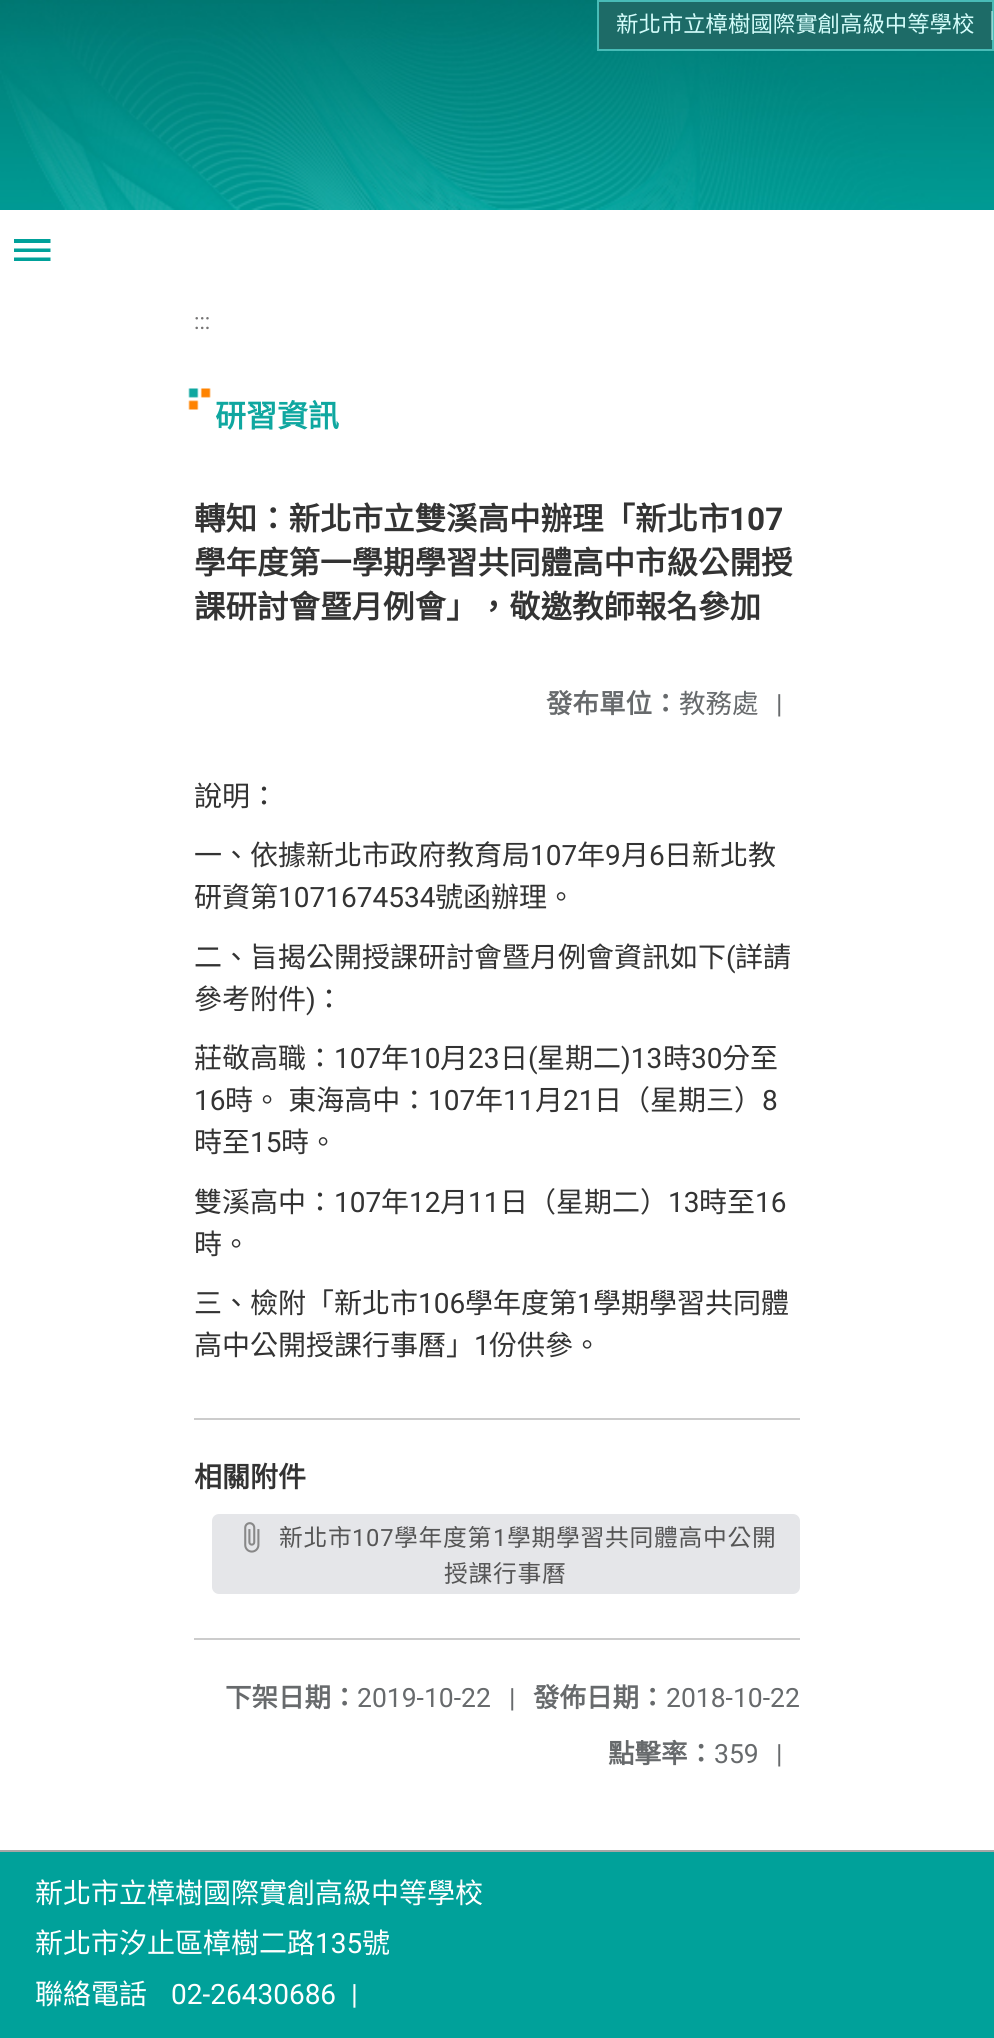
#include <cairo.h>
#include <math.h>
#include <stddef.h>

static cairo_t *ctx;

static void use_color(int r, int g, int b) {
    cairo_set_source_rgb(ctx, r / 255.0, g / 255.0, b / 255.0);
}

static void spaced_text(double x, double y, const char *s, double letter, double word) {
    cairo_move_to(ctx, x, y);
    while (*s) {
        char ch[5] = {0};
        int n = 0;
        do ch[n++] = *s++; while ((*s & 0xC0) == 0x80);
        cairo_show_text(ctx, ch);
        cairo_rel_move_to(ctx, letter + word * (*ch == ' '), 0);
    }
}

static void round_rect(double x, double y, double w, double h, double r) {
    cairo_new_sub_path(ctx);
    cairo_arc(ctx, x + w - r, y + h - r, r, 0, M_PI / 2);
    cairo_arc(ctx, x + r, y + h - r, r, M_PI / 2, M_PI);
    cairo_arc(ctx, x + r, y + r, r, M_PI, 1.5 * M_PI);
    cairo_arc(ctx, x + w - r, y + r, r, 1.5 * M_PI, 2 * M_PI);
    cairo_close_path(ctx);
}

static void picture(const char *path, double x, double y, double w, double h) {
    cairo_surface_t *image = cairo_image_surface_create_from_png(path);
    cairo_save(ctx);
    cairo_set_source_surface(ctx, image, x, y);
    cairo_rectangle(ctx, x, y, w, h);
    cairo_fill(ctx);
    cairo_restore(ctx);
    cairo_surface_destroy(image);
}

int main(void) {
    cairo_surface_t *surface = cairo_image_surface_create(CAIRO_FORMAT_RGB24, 994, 2038);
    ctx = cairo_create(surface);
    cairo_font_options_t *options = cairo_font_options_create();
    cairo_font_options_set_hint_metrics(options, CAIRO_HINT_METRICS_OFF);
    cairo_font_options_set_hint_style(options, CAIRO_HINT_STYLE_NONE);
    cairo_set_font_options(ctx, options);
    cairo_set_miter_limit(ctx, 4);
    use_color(255, 255, 255);
    cairo_paint(ctx);
    picture("img1.png", 0, 0, 994, 210);
    use_color(29, 107, 103);
    cairo_rectangle(ctx, 598, 1, 395, 49);
    cairo_fill_preserve(ctx);
    use_color(72, 188, 183);
    cairo_stroke(ctx);
    cairo_select_font_face(ctx, "Noto Sans CJK TC", CAIRO_FONT_SLANT_NORMAL, CAIRO_FONT_WEIGHT_NORMAL);
    cairo_set_font_size(ctx, 22.4);
    use_color(211, 252, 250);
    cairo_move_to(ctx, 616, 32);
    cairo_show_text(ctx, "新北市立樟樹國際實創高級中等學校");
    cairo_set_source_rgba(ctx, 0.827, 0.988, 0.98, 0.5);
    cairo_rectangle(ctx, 991, 11, 2, 29);
    cairo_fill(ctx);
    use_color(0, 161, 154);
    cairo_new_path(ctx);
    cairo_move_to(ctx, 14, 239);
    cairo_line_to(ctx, 50.5, 239);
    cairo_line_to(ctx, 50.5, 243);
    cairo_line_to(ctx, 14, 243);
    cairo_close_path(ctx);
    cairo_move_to(ctx, 14, 248.5);
    cairo_line_to(ctx, 50.5, 248.5);
    cairo_line_to(ctx, 50.5, 252);
    cairo_line_to(ctx, 14, 252);
    cairo_close_path(ctx);
    cairo_move_to(ctx, 14, 257.5);
    cairo_line_to(ctx, 50.5, 257.5);
    cairo_line_to(ctx, 50.5, 261);
    cairo_line_to(ctx, 14, 261);
    cairo_close_path(ctx);
    cairo_fill(ctx);
    cairo_select_font_face(ctx, "Roboto", CAIRO_FONT_SLANT_NORMAL, CAIRO_FONT_WEIGHT_NORMAL);
    use_color(117, 116, 116);
    cairo_move_to(ctx, 194, 329);
    cairo_show_text(ctx, ":::");
    picture("img2.png", 188, 388, 23, 22);
    cairo_select_font_face(ctx, "Noto Sans CJK TC", CAIRO_FONT_SLANT_NORMAL, CAIRO_FONT_WEIGHT_BOLD);
    cairo_set_font_size(ctx, 31);
    use_color(15, 167, 160);
    cairo_move_to(ctx, 215, 427);
    cairo_show_text(ctx, "研習資訊");
    cairo_set_font_size(ctx, 31.5);
    use_color(51, 51, 51);
    cairo_move_to(ctx, 194, 530);
    cairo_show_text(ctx, "轉知：新北市立雙溪高中辦理「新北市");
    cairo_select_font_face(ctx, "Roboto", CAIRO_FONT_SLANT_NORMAL, CAIRO_FONT_WEIGHT_BOLD);
    cairo_move_to(ctx, 729, 530);
    cairo_show_text(ctx, "107");
    cairo_select_font_face(ctx, "Noto Sans CJK TC", CAIRO_FONT_SLANT_NORMAL, CAIRO_FONT_WEIGHT_BOLD);
    cairo_move_to(ctx, 194, 574);
    cairo_show_text(ctx, "學年度第一學期學習共同體高中市級公開授");
    cairo_move_to(ctx, 194, 618);
    cairo_show_text(ctx, "課研討會暨月例會」，敬邀教師報名參加");
    cairo_set_font_size(ctx, 26.5);
    use_color(103, 106, 108);
    cairo_move_to(ctx, 546, 713);
    cairo_show_text(ctx, "發布單位：");
    cairo_select_font_face(ctx, "Noto Sans CJK TC", CAIRO_FONT_SLANT_NORMAL, CAIRO_FONT_WEIGHT_NORMAL);
    cairo_move_to(ctx, 679, 713);
    cairo_show_text(ctx, "教務處");
    cairo_select_font_face(ctx, "Roboto", CAIRO_FONT_SLANT_NORMAL, CAIRO_FONT_WEIGHT_NORMAL);
    cairo_move_to(ctx, 776, 713);
    cairo_show_text(ctx, "|");
    cairo_select_font_face(ctx, "Noto Sans CJK TC", CAIRO_FONT_SLANT_NORMAL, CAIRO_FONT_WEIGHT_NORMAL);
    cairo_set_font_size(ctx, 28);
    use_color(51, 51, 51);
    cairo_move_to(ctx, 194, 806);
    cairo_show_text(ctx, "說明：");
    cairo_move_to(ctx, 194, 865);
    cairo_show_text(ctx, "一、依據新北市政府教育局");
    cairo_select_font_face(ctx, "Roboto", CAIRO_FONT_SLANT_NORMAL, CAIRO_FONT_WEIGHT_NORMAL);
    cairo_move_to(ctx, 530, 865);
    cairo_show_text(ctx, "107");
    cairo_select_font_face(ctx, "Noto Sans CJK TC", CAIRO_FONT_SLANT_NORMAL, CAIRO_FONT_WEIGHT_NORMAL);
    cairo_move_to(ctx, 577, 865);
    cairo_show_text(ctx, "年");
    cairo_select_font_face(ctx, "Roboto", CAIRO_FONT_SLANT_NORMAL, CAIRO_FONT_WEIGHT_NORMAL);
    cairo_move_to(ctx, 605, 865);
    cairo_show_text(ctx, "9");
    cairo_select_font_face(ctx, "Noto Sans CJK TC", CAIRO_FONT_SLANT_NORMAL, CAIRO_FONT_WEIGHT_NORMAL);
    cairo_move_to(ctx, 621, 865);
    cairo_show_text(ctx, "月");
    cairo_select_font_face(ctx, "Roboto", CAIRO_FONT_SLANT_NORMAL, CAIRO_FONT_WEIGHT_NORMAL);
    cairo_move_to(ctx, 649, 865);
    cairo_show_text(ctx, "6");
    cairo_select_font_face(ctx, "Noto Sans CJK TC", CAIRO_FONT_SLANT_NORMAL, CAIRO_FONT_WEIGHT_NORMAL);
    cairo_move_to(ctx, 664, 865);
    cairo_show_text(ctx, "日新北教");
    cairo_move_to(ctx, 194, 907);
    cairo_show_text(ctx, "研資第");
    cairo_select_font_face(ctx, "Roboto", CAIRO_FONT_SLANT_NORMAL, CAIRO_FONT_WEIGHT_NORMAL);
    cairo_move_to(ctx, 278, 907);
    cairo_show_text(ctx, "1071674534");
    cairo_select_font_face(ctx, "Noto Sans CJK TC", CAIRO_FONT_SLANT_NORMAL, CAIRO_FONT_WEIGHT_NORMAL);
    cairo_move_to(ctx, 435, 907);
    cairo_show_text(ctx, "號函辦理。");
    cairo_move_to(ctx, 194, 967);
    cairo_show_text(ctx, "二、旨揭公開授課研討會暨月例會資訊如下");
    cairo_select_font_face(ctx, "Roboto", CAIRO_FONT_SLANT_NORMAL, CAIRO_FONT_WEIGHT_NORMAL);
    cairo_move_to(ctx, 726, 967);
    cairo_show_text(ctx, "(");
    cairo_select_font_face(ctx, "Noto Sans CJK TC", CAIRO_FONT_SLANT_NORMAL, CAIRO_FONT_WEIGHT_NORMAL);
    cairo_move_to(ctx, 735, 967);
    cairo_show_text(ctx, "詳請");
    cairo_move_to(ctx, 194, 1009);
    cairo_show_text(ctx, "參考附件");
    cairo_select_font_face(ctx, "Roboto", CAIRO_FONT_SLANT_NORMAL, CAIRO_FONT_WEIGHT_NORMAL);
    cairo_move_to(ctx, 306, 1009);
    cairo_show_text(ctx, ")");
    cairo_select_font_face(ctx, "Noto Sans CJK TC", CAIRO_FONT_SLANT_NORMAL, CAIRO_FONT_WEIGHT_NORMAL);
    cairo_move_to(ctx, 315, 1009);
    cairo_show_text(ctx, "：");
    cairo_move_to(ctx, 194, 1068);
    cairo_show_text(ctx, "莊敬高職：");
    cairo_select_font_face(ctx, "Roboto", CAIRO_FONT_SLANT_NORMAL, CAIRO_FONT_WEIGHT_NORMAL);
    cairo_move_to(ctx, 334, 1068);
    cairo_show_text(ctx, "107");
    cairo_select_font_face(ctx, "Noto Sans CJK TC", CAIRO_FONT_SLANT_NORMAL, CAIRO_FONT_WEIGHT_NORMAL);
    cairo_move_to(ctx, 381, 1068);
    cairo_show_text(ctx, "年");
    cairo_select_font_face(ctx, "Roboto", CAIRO_FONT_SLANT_NORMAL, CAIRO_FONT_WEIGHT_NORMAL);
    cairo_move_to(ctx, 409, 1068);
    cairo_show_text(ctx, "10");
    cairo_select_font_face(ctx, "Noto Sans CJK TC", CAIRO_FONT_SLANT_NORMAL, CAIRO_FONT_WEIGHT_NORMAL);
    cairo_move_to(ctx, 440, 1068);
    cairo_show_text(ctx, "月");
    cairo_select_font_face(ctx, "Roboto", CAIRO_FONT_SLANT_NORMAL, CAIRO_FONT_WEIGHT_NORMAL);
    cairo_move_to(ctx, 468, 1068);
    cairo_show_text(ctx, "23");
    cairo_select_font_face(ctx, "Noto Sans CJK TC", CAIRO_FONT_SLANT_NORMAL, CAIRO_FONT_WEIGHT_NORMAL);
    cairo_move_to(ctx, 500, 1068);
    cairo_show_text(ctx, "日");
    cairo_select_font_face(ctx, "Roboto", CAIRO_FONT_SLANT_NORMAL, CAIRO_FONT_WEIGHT_NORMAL);
    cairo_move_to(ctx, 528, 1068);
    cairo_show_text(ctx, "(");
    cairo_select_font_face(ctx, "Noto Sans CJK TC", CAIRO_FONT_SLANT_NORMAL, CAIRO_FONT_WEIGHT_NORMAL);
    cairo_move_to(ctx, 537, 1068);
    cairo_show_text(ctx, "星期二");
    cairo_select_font_face(ctx, "Roboto", CAIRO_FONT_SLANT_NORMAL, CAIRO_FONT_WEIGHT_NORMAL);
    cairo_move_to(ctx, 621, 1068);
    cairo_show_text(ctx, ")13");
    cairo_select_font_face(ctx, "Noto Sans CJK TC", CAIRO_FONT_SLANT_NORMAL, CAIRO_FONT_WEIGHT_NORMAL);
    cairo_move_to(ctx, 663, 1068);
    cairo_show_text(ctx, "時");
    cairo_select_font_face(ctx, "Roboto", CAIRO_FONT_SLANT_NORMAL, CAIRO_FONT_WEIGHT_NORMAL);
    cairo_move_to(ctx, 691, 1068);
    cairo_show_text(ctx, "30");
    cairo_select_font_face(ctx, "Noto Sans CJK TC", CAIRO_FONT_SLANT_NORMAL, CAIRO_FONT_WEIGHT_NORMAL);
    cairo_move_to(ctx, 722, 1068);
    cairo_show_text(ctx, "分至");
    cairo_select_font_face(ctx, "Roboto", CAIRO_FONT_SLANT_NORMAL, CAIRO_FONT_WEIGHT_NORMAL);
    cairo_move_to(ctx, 194, 1110);
    cairo_show_text(ctx, "16");
    cairo_select_font_face(ctx, "Noto Sans CJK TC", CAIRO_FONT_SLANT_NORMAL, CAIRO_FONT_WEIGHT_NORMAL);
    spaced_text(225, 1110, "時。 東海高中：", 0, 1);
    cairo_select_font_face(ctx, "Roboto", CAIRO_FONT_SLANT_NORMAL, CAIRO_FONT_WEIGHT_NORMAL);
    cairo_move_to(ctx, 428, 1110);
    cairo_show_text(ctx, "107");
    cairo_select_font_face(ctx, "Noto Sans CJK TC", CAIRO_FONT_SLANT_NORMAL, CAIRO_FONT_WEIGHT_NORMAL);
    cairo_move_to(ctx, 475, 1110);
    cairo_show_text(ctx, "年");
    cairo_select_font_face(ctx, "Roboto", CAIRO_FONT_SLANT_NORMAL, CAIRO_FONT_WEIGHT_NORMAL);
    cairo_move_to(ctx, 503, 1110);
    cairo_show_text(ctx, "11");
    cairo_select_font_face(ctx, "Noto Sans CJK TC", CAIRO_FONT_SLANT_NORMAL, CAIRO_FONT_WEIGHT_NORMAL);
    cairo_move_to(ctx, 535, 1110);
    cairo_show_text(ctx, "月");
    cairo_select_font_face(ctx, "Roboto", CAIRO_FONT_SLANT_NORMAL, CAIRO_FONT_WEIGHT_NORMAL);
    cairo_move_to(ctx, 563, 1110);
    cairo_show_text(ctx, "21");
    cairo_select_font_face(ctx, "Noto Sans CJK TC", CAIRO_FONT_SLANT_NORMAL, CAIRO_FONT_WEIGHT_NORMAL);
    cairo_move_to(ctx, 594, 1110);
    cairo_show_text(ctx, "日（星期三）");
    cairo_select_font_face(ctx, "Roboto", CAIRO_FONT_SLANT_NORMAL, CAIRO_FONT_WEIGHT_NORMAL);
    cairo_move_to(ctx, 762, 1110);
    cairo_show_text(ctx, "8");
    cairo_select_font_face(ctx, "Noto Sans CJK TC", CAIRO_FONT_SLANT_NORMAL, CAIRO_FONT_WEIGHT_NORMAL);
    cairo_move_to(ctx, 194, 1152);
    cairo_show_text(ctx, "時至");
    cairo_select_font_face(ctx, "Roboto", CAIRO_FONT_SLANT_NORMAL, CAIRO_FONT_WEIGHT_NORMAL);
    cairo_move_to(ctx, 250, 1152);
    cairo_show_text(ctx, "15");
    cairo_select_font_face(ctx, "Noto Sans CJK TC", CAIRO_FONT_SLANT_NORMAL, CAIRO_FONT_WEIGHT_NORMAL);
    cairo_move_to(ctx, 281, 1152);
    cairo_show_text(ctx, "時。");
    cairo_move_to(ctx, 194, 1212);
    cairo_show_text(ctx, "雙溪高中：");
    cairo_select_font_face(ctx, "Roboto", CAIRO_FONT_SLANT_NORMAL, CAIRO_FONT_WEIGHT_NORMAL);
    cairo_move_to(ctx, 334, 1212);
    cairo_show_text(ctx, "107");
    cairo_select_font_face(ctx, "Noto Sans CJK TC", CAIRO_FONT_SLANT_NORMAL, CAIRO_FONT_WEIGHT_NORMAL);
    cairo_move_to(ctx, 381, 1212);
    cairo_show_text(ctx, "年");
    cairo_select_font_face(ctx, "Roboto", CAIRO_FONT_SLANT_NORMAL, CAIRO_FONT_WEIGHT_NORMAL);
    cairo_move_to(ctx, 409, 1212);
    cairo_show_text(ctx, "12");
    cairo_select_font_face(ctx, "Noto Sans CJK TC", CAIRO_FONT_SLANT_NORMAL, CAIRO_FONT_WEIGHT_NORMAL);
    cairo_move_to(ctx, 440, 1212);
    cairo_show_text(ctx, "月");
    cairo_select_font_face(ctx, "Roboto", CAIRO_FONT_SLANT_NORMAL, CAIRO_FONT_WEIGHT_NORMAL);
    cairo_move_to(ctx, 468, 1212);
    cairo_show_text(ctx, "11");
    cairo_select_font_face(ctx, "Noto Sans CJK TC", CAIRO_FONT_SLANT_NORMAL, CAIRO_FONT_WEIGHT_NORMAL);
    cairo_move_to(ctx, 500, 1212);
    cairo_show_text(ctx, "日（星期二）");
    cairo_select_font_face(ctx, "Roboto", CAIRO_FONT_SLANT_NORMAL, CAIRO_FONT_WEIGHT_NORMAL);
    cairo_move_to(ctx, 668, 1212);
    cairo_show_text(ctx, "13");
    cairo_select_font_face(ctx, "Noto Sans CJK TC", CAIRO_FONT_SLANT_NORMAL, CAIRO_FONT_WEIGHT_NORMAL);
    cairo_move_to(ctx, 699, 1212);
    cairo_show_text(ctx, "時至");
    cairo_select_font_face(ctx, "Roboto", CAIRO_FONT_SLANT_NORMAL, CAIRO_FONT_WEIGHT_NORMAL);
    cairo_move_to(ctx, 755, 1212);
    cairo_show_text(ctx, "16");
    cairo_select_font_face(ctx, "Noto Sans CJK TC", CAIRO_FONT_SLANT_NORMAL, CAIRO_FONT_WEIGHT_NORMAL);
    cairo_move_to(ctx, 194, 1254);
    cairo_show_text(ctx, "時。");
    cairo_move_to(ctx, 194, 1313);
    cairo_show_text(ctx, "三、檢附「新北市");
    cairo_select_font_face(ctx, "Roboto", CAIRO_FONT_SLANT_NORMAL, CAIRO_FONT_WEIGHT_NORMAL);
    cairo_move_to(ctx, 418, 1313);
    cairo_show_text(ctx, "106");
    cairo_select_font_face(ctx, "Noto Sans CJK TC", CAIRO_FONT_SLANT_NORMAL, CAIRO_FONT_WEIGHT_NORMAL);
    cairo_move_to(ctx, 465, 1313);
    cairo_show_text(ctx, "學年度第");
    cairo_select_font_face(ctx, "Roboto", CAIRO_FONT_SLANT_NORMAL, CAIRO_FONT_WEIGHT_NORMAL);
    cairo_move_to(ctx, 577, 1313);
    cairo_show_text(ctx, "1");
    cairo_select_font_face(ctx, "Noto Sans CJK TC", CAIRO_FONT_SLANT_NORMAL, CAIRO_FONT_WEIGHT_NORMAL);
    cairo_move_to(ctx, 593, 1313);
    cairo_show_text(ctx, "學期學習共同體");
    cairo_move_to(ctx, 194, 1355);
    cairo_show_text(ctx, "高中公開授課行事曆」");
    cairo_select_font_face(ctx, "Roboto", CAIRO_FONT_SLANT_NORMAL, CAIRO_FONT_WEIGHT_NORMAL);
    cairo_move_to(ctx, 474, 1355);
    cairo_show_text(ctx, "1");
    cairo_select_font_face(ctx, "Noto Sans CJK TC", CAIRO_FONT_SLANT_NORMAL, CAIRO_FONT_WEIGHT_NORMAL);
    cairo_move_to(ctx, 489, 1355);
    cairo_show_text(ctx, "份供參。");
    use_color(204, 204, 204);
    cairo_rectangle(ctx, 194, 1418, 606, 2);
    cairo_fill(ctx);
    cairo_select_font_face(ctx, "Noto Sans CJK TC", CAIRO_FONT_SLANT_NORMAL, CAIRO_FONT_WEIGHT_BOLD);
    use_color(51, 51, 51);
    cairo_move_to(ctx, 194, 1487);
    cairo_show_text(ctx, "相關附件");
    use_color(229, 230, 233);
    round_rect(213, 1515, 586, 78, 6);
    cairo_fill_preserve(ctx);
    cairo_stroke(ctx);
    picture("img3.png", 244, 1522, 16, 31);
    cairo_select_font_face(ctx, "Noto Sans CJK TC", CAIRO_FONT_SLANT_NORMAL, CAIRO_FONT_WEIGHT_NORMAL);
    cairo_set_font_size(ctx, 23.75);
    use_color(85, 85, 85);
    spaced_text(279, 1546, "新北市", 0.75, 0);
    cairo_select_font_face(ctx, "Roboto", CAIRO_FONT_SLANT_NORMAL, CAIRO_FONT_WEIGHT_NORMAL);
    spaced_text(352, 1546, "107", 0.75, 0);
    cairo_select_font_face(ctx, "Noto Sans CJK TC", CAIRO_FONT_SLANT_NORMAL, CAIRO_FONT_WEIGHT_NORMAL);
    spaced_text(394, 1546, "學年度第", 0.75, 0);
    cairo_select_font_face(ctx, "Roboto", CAIRO_FONT_SLANT_NORMAL, CAIRO_FONT_WEIGHT_NORMAL);
    spaced_text(493, 1546, "1", 0.75, 0);
    cairo_select_font_face(ctx, "Noto Sans CJK TC", CAIRO_FONT_SLANT_NORMAL, CAIRO_FONT_WEIGHT_NORMAL);
    spaced_text(507, 1546, "學期學習共同體高中公開", 0.75, 0);
    spaced_text(444, 1582, "授課行事曆", 0.75, 0);
    use_color(204, 204, 204);
    cairo_rectangle(ctx, 194, 1638, 606, 2);
    cairo_fill(ctx);
    cairo_select_font_face(ctx, "Noto Sans CJK TC", CAIRO_FONT_SLANT_NORMAL, CAIRO_FONT_WEIGHT_BOLD);
    cairo_set_font_size(ctx, 26.5);
    use_color(103, 106, 108);
    cairo_move_to(ctx, 225, 1707);
    cairo_show_text(ctx, "下架日期：");
    cairo_select_font_face(ctx, "Roboto", CAIRO_FONT_SLANT_NORMAL, CAIRO_FONT_WEIGHT_NORMAL);
    cairo_move_to(ctx, 357, 1707);
    cairo_show_text(ctx, "2019-10-22");
    cairo_move_to(ctx, 509, 1707);
    cairo_show_text(ctx, "|");
    cairo_select_font_face(ctx, "Noto Sans CJK TC", CAIRO_FONT_SLANT_NORMAL, CAIRO_FONT_WEIGHT_BOLD);
    cairo_move_to(ctx, 533, 1707);
    cairo_show_text(ctx, "發佈日期：");
    cairo_select_font_face(ctx, "Roboto", CAIRO_FONT_SLANT_NORMAL, CAIRO_FONT_WEIGHT_NORMAL);
    cairo_move_to(ctx, 666, 1707);
    cairo_show_text(ctx, "2018-10-22");
    cairo_select_font_face(ctx, "Noto Sans CJK TC", CAIRO_FONT_SLANT_NORMAL, CAIRO_FONT_WEIGHT_BOLD);
    cairo_move_to(ctx, 608, 1763);
    cairo_show_text(ctx, "點擊率：");
    cairo_select_font_face(ctx, "Roboto", CAIRO_FONT_SLANT_NORMAL, CAIRO_FONT_WEIGHT_NORMAL);
    cairo_move_to(ctx, 714, 1763);
    cairo_show_text(ctx, "359");
    cairo_move_to(ctx, 776, 1763);
    cairo_show_text(ctx, "|");
    use_color(0, 161, 154);
    cairo_rectangle(ctx, 0, 1852, 994, 186);
    cairo_fill(ctx);
    use_color(166, 166, 166);
    cairo_rectangle(ctx, 0, 1850, 994, 2);
    cairo_fill(ctx);
    cairo_select_font_face(ctx, "Noto Sans CJK TC", CAIRO_FONT_SLANT_NORMAL, CAIRO_FONT_WEIGHT_NORMAL);
    cairo_set_font_size(ctx, 28);
    use_color(255, 255, 255);
    cairo_move_to(ctx, 35, 1903);
    cairo_show_text(ctx, "新北市立樟樹國際實創高級中等學校");
    cairo_move_to(ctx, 35, 1953);
    cairo_show_text(ctx, "新北市汐止區樟樹二路");
    cairo_select_font_face(ctx, "Roboto", CAIRO_FONT_SLANT_NORMAL, CAIRO_FONT_WEIGHT_NORMAL);
    cairo_move_to(ctx, 315, 1953);
    cairo_show_text(ctx, "135");
    cairo_select_font_face(ctx, "Noto Sans CJK TC", CAIRO_FONT_SLANT_NORMAL, CAIRO_FONT_WEIGHT_NORMAL);
    cairo_move_to(ctx, 362, 1953);
    cairo_show_text(ctx, "號");
    cairo_move_to(ctx, 35, 2004);
    cairo_show_text(ctx, "聯絡電話");
    cairo_select_font_face(ctx, "Roboto", CAIRO_FONT_SLANT_NORMAL, CAIRO_FONT_WEIGHT_NORMAL);
    cairo_move_to(ctx, 171, 2004);
    cairo_show_text(ctx, "02-26430686");
    cairo_move_to(ctx, 351, 2004);
    cairo_show_text(ctx, "|");
    cairo_surface_write_to_png(surface, "result.png");
    cairo_font_options_destroy(options);
    cairo_destroy(ctx);
    cairo_surface_destroy(surface);
    return 0;
}
